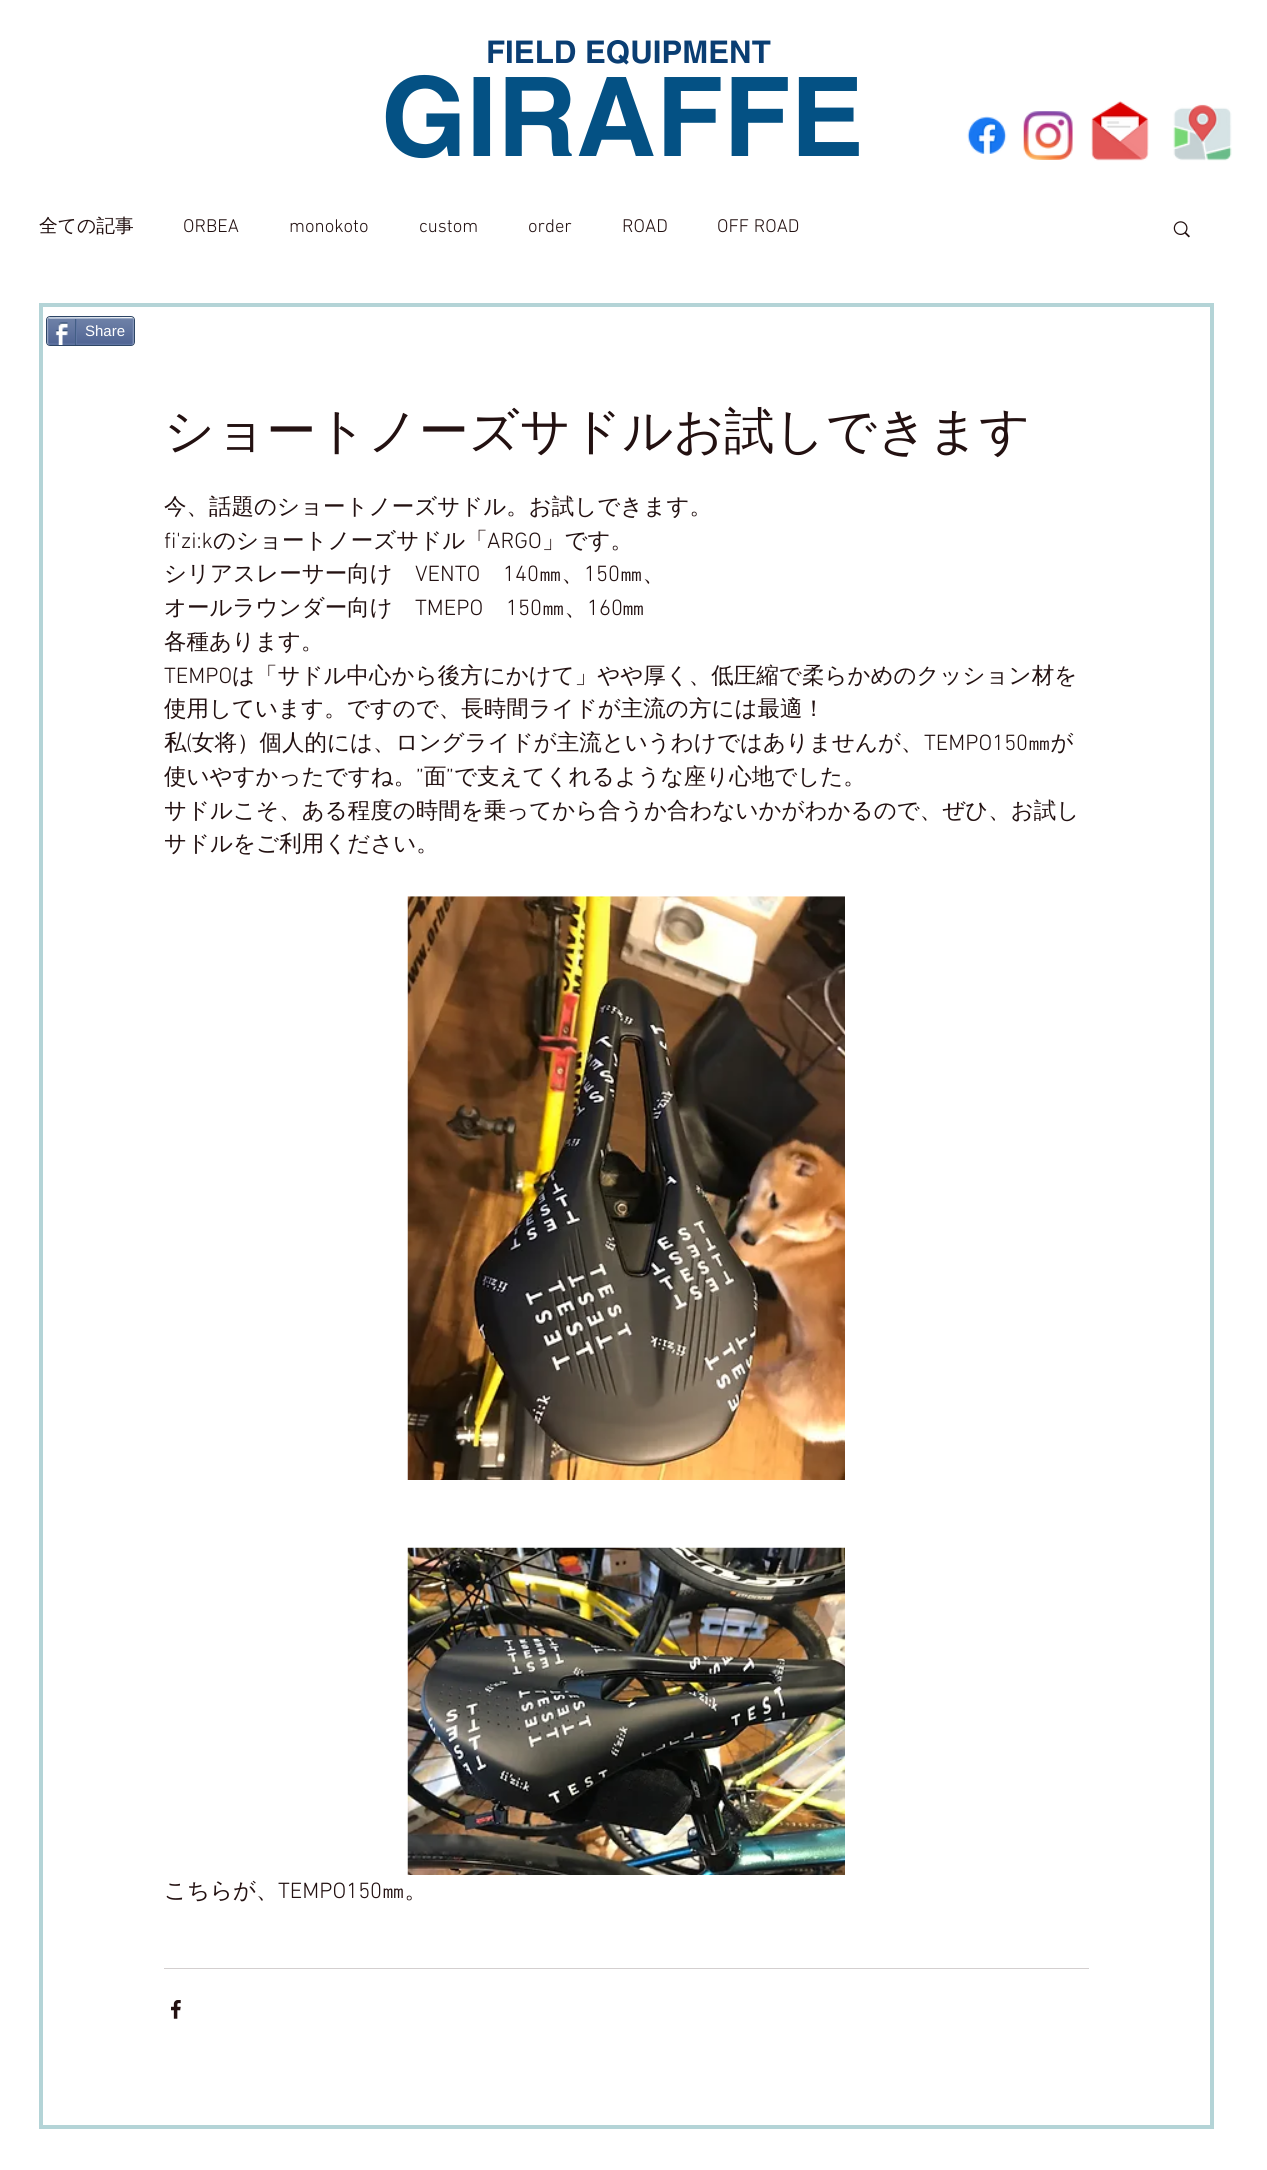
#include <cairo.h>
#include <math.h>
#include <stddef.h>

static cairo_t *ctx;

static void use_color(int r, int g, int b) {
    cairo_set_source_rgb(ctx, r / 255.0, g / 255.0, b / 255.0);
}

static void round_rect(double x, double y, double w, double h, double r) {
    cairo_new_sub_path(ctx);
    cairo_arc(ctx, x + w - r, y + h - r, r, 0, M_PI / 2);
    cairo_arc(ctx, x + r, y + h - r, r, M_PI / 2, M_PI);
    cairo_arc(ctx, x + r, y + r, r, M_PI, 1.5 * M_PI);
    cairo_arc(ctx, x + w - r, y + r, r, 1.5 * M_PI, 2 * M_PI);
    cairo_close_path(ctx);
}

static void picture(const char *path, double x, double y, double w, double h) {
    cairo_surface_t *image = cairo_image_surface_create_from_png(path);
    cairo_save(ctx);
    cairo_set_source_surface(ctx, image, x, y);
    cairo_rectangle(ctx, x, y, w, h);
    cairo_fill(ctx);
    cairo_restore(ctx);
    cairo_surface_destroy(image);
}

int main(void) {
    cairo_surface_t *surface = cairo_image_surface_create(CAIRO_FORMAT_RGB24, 1267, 2170);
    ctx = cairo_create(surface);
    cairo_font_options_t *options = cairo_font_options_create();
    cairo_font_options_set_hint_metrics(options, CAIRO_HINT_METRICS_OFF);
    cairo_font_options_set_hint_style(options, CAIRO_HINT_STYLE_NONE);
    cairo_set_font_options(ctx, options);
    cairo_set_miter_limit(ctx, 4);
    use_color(255, 255, 255);
    cairo_paint(ctx);
    cairo_select_font_face(ctx, "helvetica", CAIRO_FONT_SLANT_NORMAL, CAIRO_FONT_WEIGHT_BOLD);
    cairo_set_font_size(ctx, 31.25);
    use_color(10, 62, 115);
    cairo_move_to(ctx, 486, 63);
    cairo_show_text(ctx, "FIELD EQUIPMENT");
    cairo_set_font_size(ctx, 110);
    use_color(4, 81, 132);
    cairo_move_to(ctx, 381, 156);
    cairo_show_text(ctx, "GIRAFFE");
    picture("img1.png", 967, 116, 40, 38);
    picture("img2.png", 1023, 111, 50, 49);
    picture("img3.png", 1091, 101, 58, 60);
    picture("img4.png", 1173, 104, 59, 57);
    cairo_select_font_face(ctx, "WenQuanYi Zen Hei Medium", CAIRO_FONT_SLANT_NORMAL, CAIRO_FONT_WEIGHT_NORMAL);
    cairo_set_font_size(ctx, 18.75);
    use_color(35, 17, 17);
    cairo_move_to(ctx, 39, 232);
    cairo_show_text(ctx, "全ての記事");
    cairo_select_font_face(ctx, "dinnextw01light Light", CAIRO_FONT_SLANT_NORMAL, CAIRO_FONT_WEIGHT_NORMAL);
    cairo_move_to(ctx, 183, 232);
    cairo_show_text(ctx, "ORBEA");
    cairo_move_to(ctx, 289, 232);
    cairo_show_text(ctx, "monokoto");
    cairo_move_to(ctx, 419, 232);
    cairo_show_text(ctx, "custom");
    cairo_move_to(ctx, 528, 232);
    cairo_show_text(ctx, "order");
    cairo_move_to(ctx, 622, 232);
    cairo_show_text(ctx, "ROAD");
    cairo_move_to(ctx, 717, 232);
    cairo_show_text(ctx, "OFF ROAD");
    picture("img5.png", 1173, 221, 17, 17);
    cairo_rectangle(ctx, 41, 305, 1171, 1822);
    use_color(180, 212, 215);
    cairo_set_line_width(ctx, 4);
    cairo_stroke(ctx);
    cairo_select_font_face(ctx, "WenQuanYi Zen Hei Medium", CAIRO_FONT_SLANT_NORMAL, CAIRO_FONT_WEIGHT_NORMAL);
    cairo_set_font_size(ctx, 50);
    use_color(35, 17, 17);
    cairo_move_to(ctx, 164, 448);
    cairo_show_text(ctx, "ショートノーズサドルお試しできます");
    cairo_set_font_size(ctx, 22.5);
    cairo_move_to(ctx, 164, 514);
    cairo_show_text(ctx, "今、話題のショートノーズサドル。お試しできます。");
    cairo_select_font_face(ctx, "dinnextw01light Light", CAIRO_FONT_SLANT_NORMAL, CAIRO_FONT_WEIGHT_NORMAL);
    cairo_move_to(ctx, 164, 548);
    cairo_show_text(ctx, "fi'zi:k");
    cairo_select_font_face(ctx, "WenQuanYi Zen Hei Medium", CAIRO_FONT_SLANT_NORMAL, CAIRO_FONT_WEIGHT_NORMAL);
    cairo_move_to(ctx, 213, 548);
    cairo_show_text(ctx, "のショートノーズサドル「");
    cairo_select_font_face(ctx, "dinnextw01light Light", CAIRO_FONT_SLANT_NORMAL, CAIRO_FONT_WEIGHT_NORMAL);
    cairo_move_to(ctx, 487, 548);
    cairo_show_text(ctx, "ARGO");
    cairo_select_font_face(ctx, "WenQuanYi Zen Hei Medium", CAIRO_FONT_SLANT_NORMAL, CAIRO_FONT_WEIGHT_NORMAL);
    cairo_move_to(ctx, 542, 548);
    cairo_show_text(ctx, "」です。");
    cairo_move_to(ctx, 164, 581);
    cairo_show_text(ctx, "シリアスレーサー向け");
    cairo_select_font_face(ctx, "dinnextw01light Light", CAIRO_FONT_SLANT_NORMAL, CAIRO_FONT_WEIGHT_NORMAL);
    cairo_move_to(ctx, 415, 581);
    cairo_show_text(ctx, "VENTO");
    cairo_move_to(ctx, 503, 581);
    cairo_show_text(ctx, "140");
    cairo_select_font_face(ctx, "WenQuanYi Zen Hei Medium", CAIRO_FONT_SLANT_NORMAL, CAIRO_FONT_WEIGHT_NORMAL);
    cairo_move_to(ctx, 539, 581);
    cairo_show_text(ctx, "㎜、");
    cairo_select_font_face(ctx, "dinnextw01light Light", CAIRO_FONT_SLANT_NORMAL, CAIRO_FONT_WEIGHT_NORMAL);
    cairo_move_to(ctx, 584, 581);
    cairo_show_text(ctx, "150");
    cairo_select_font_face(ctx, "WenQuanYi Zen Hei Medium", CAIRO_FONT_SLANT_NORMAL, CAIRO_FONT_WEIGHT_NORMAL);
    cairo_move_to(ctx, 620, 581);
    cairo_show_text(ctx, "㎜、");
    cairo_move_to(ctx, 164, 615);
    cairo_show_text(ctx, "オールラウンダー向け");
    cairo_select_font_face(ctx, "dinnextw01light Light", CAIRO_FONT_SLANT_NORMAL, CAIRO_FONT_WEIGHT_NORMAL);
    cairo_move_to(ctx, 415, 615);
    cairo_show_text(ctx, "TMEPO");
    cairo_move_to(ctx, 506, 615);
    cairo_show_text(ctx, "150");
    cairo_select_font_face(ctx, "WenQuanYi Zen Hei Medium", CAIRO_FONT_SLANT_NORMAL, CAIRO_FONT_WEIGHT_NORMAL);
    cairo_move_to(ctx, 542, 615);
    cairo_show_text(ctx, "㎜、");
    cairo_select_font_face(ctx, "dinnextw01light Light", CAIRO_FONT_SLANT_NORMAL, CAIRO_FONT_WEIGHT_NORMAL);
    cairo_move_to(ctx, 587, 615);
    cairo_show_text(ctx, "160");
    cairo_select_font_face(ctx, "WenQuanYi Zen Hei Medium", CAIRO_FONT_SLANT_NORMAL, CAIRO_FONT_WEIGHT_NORMAL);
    cairo_move_to(ctx, 622, 615);
    cairo_show_text(ctx, "㎜");
    cairo_move_to(ctx, 164, 649);
    cairo_show_text(ctx, "各種あります。");
    cairo_select_font_face(ctx, "dinnextw01light Light", CAIRO_FONT_SLANT_NORMAL, CAIRO_FONT_WEIGHT_NORMAL);
    cairo_move_to(ctx, 164, 683);
    cairo_show_text(ctx, "TEMPO");
    cairo_select_font_face(ctx, "WenQuanYi Zen Hei Medium", CAIRO_FONT_SLANT_NORMAL, CAIRO_FONT_WEIGHT_NORMAL);
    cairo_move_to(ctx, 232, 683);
    cairo_show_text(ctx, "は「サドル中心から後方にかけて」やや厚く、低圧縮で柔らかめのクッション材を");
    cairo_move_to(ctx, 164, 716);
    cairo_show_text(ctx, "使用しています。ですので、長時間ライドが主流の方には最適！");
    cairo_move_to(ctx, 164, 750);
    cairo_show_text(ctx, "私");
    cairo_select_font_face(ctx, "dinnextw01light Light", CAIRO_FONT_SLANT_NORMAL, CAIRO_FONT_WEIGHT_NORMAL);
    cairo_move_to(ctx, 186, 750);
    cairo_show_text(ctx, "(");
    cairo_select_font_face(ctx, "WenQuanYi Zen Hei Medium", CAIRO_FONT_SLANT_NORMAL, CAIRO_FONT_WEIGHT_NORMAL);
    cairo_move_to(ctx, 192, 750);
    cairo_show_text(ctx, "女将）個人的には、ロングライドが主流というわけではありませんが、");
    cairo_select_font_face(ctx, "dinnextw01light Light", CAIRO_FONT_SLANT_NORMAL, CAIRO_FONT_WEIGHT_NORMAL);
    cairo_move_to(ctx, 924, 750);
    cairo_show_text(ctx, "TEMPO150");
    cairo_select_font_face(ctx, "WenQuanYi Zen Hei Medium", CAIRO_FONT_SLANT_NORMAL, CAIRO_FONT_WEIGHT_NORMAL);
    cairo_move_to(ctx, 1028, 750);
    cairo_show_text(ctx, "㎜が");
    cairo_move_to(ctx, 164, 784);
    cairo_show_text(ctx, "使いやすかったですね。");
    cairo_select_font_face(ctx, "dinnextw01light Light", CAIRO_FONT_SLANT_NORMAL, CAIRO_FONT_WEIGHT_NORMAL);
    cairo_move_to(ctx, 416, 784);
    cairo_show_text(ctx, "”");
    cairo_select_font_face(ctx, "WenQuanYi Zen Hei Medium", CAIRO_FONT_SLANT_NORMAL, CAIRO_FONT_WEIGHT_NORMAL);
    cairo_move_to(ctx, 424, 784);
    cairo_show_text(ctx, "面");
    cairo_select_font_face(ctx, "dinnextw01light Light", CAIRO_FONT_SLANT_NORMAL, CAIRO_FONT_WEIGHT_NORMAL);
    cairo_move_to(ctx, 446, 784);
    cairo_show_text(ctx, "”");
    cairo_select_font_face(ctx, "WenQuanYi Zen Hei Medium", CAIRO_FONT_SLANT_NORMAL, CAIRO_FONT_WEIGHT_NORMAL);
    cairo_move_to(ctx, 454, 784);
    cairo_show_text(ctx, "で支えてくれるような座り心地でした。");
    cairo_move_to(ctx, 164, 818);
    cairo_show_text(ctx, "サドルこそ、ある程度の時間を乗ってから合うか合わないかがわかるので、ぜひ、お試し");
    cairo_move_to(ctx, 164, 851);
    cairo_show_text(ctx, "サドルをご利用ください。");
    picture("img6.png", 407, 896, 438, 584);
    picture("img7.png", 407, 1547, 438, 328);
    cairo_move_to(ctx, 164, 1898);
    cairo_show_text(ctx, "こちらが、");
    cairo_select_font_face(ctx, "dinnextw01light Light", CAIRO_FONT_SLANT_NORMAL, CAIRO_FONT_WEIGHT_NORMAL);
    cairo_move_to(ctx, 278, 1898);
    cairo_show_text(ctx, "TEMPO150");
    cairo_select_font_face(ctx, "WenQuanYi Zen Hei Medium", CAIRO_FONT_SLANT_NORMAL, CAIRO_FONT_WEIGHT_NORMAL);
    cairo_move_to(ctx, 382, 1898);
    cairo_show_text(ctx, "㎜。");
    use_color(211, 207, 207);
    cairo_rectangle(ctx, 164, 1968, 925, 1);
    cairo_fill(ctx);
    picture("img8.png", 171, 2000, 10, 19);
    round_rect(46.5, 316.5, 88, 29, 3.5);
    use_color(45, 69, 101);
    cairo_set_line_width(ctx, 1);
    cairo_stroke(ctx);
    picture("img9.png", 47, 318, 87, 27);
    cairo_new_path(ctx);
    cairo_move_to(ctx, 48.5, 318.5);
    cairo_line_to(ctx, 50, 318);
    cairo_line_to(ctx, 132.5, 318.5);
    use_color(154, 171, 198);
    cairo_set_line_width(ctx, 1.2);
    cairo_stroke(ctx);
    cairo_new_path(ctx);
    cairo_move_to(ctx, 132.5, 318.5);
    cairo_line_to(ctx, 133, 320);
    cairo_line_to(ctx, 133, 342.5);
    cairo_line_to(ctx, 132.5, 344);
    use_color(111, 131, 173);
    cairo_stroke(ctx);
    cairo_new_path(ctx);
    cairo_move_to(ctx, 132.5, 344);
    cairo_line_to(ctx, 131, 344.5);
    cairo_line_to(ctx, 48.5, 344);
    use_color(97, 118, 163);
    cairo_stroke(ctx);
    cairo_new_path(ctx);
    cairo_move_to(ctx, 48.5, 344);
    cairo_line_to(ctx, 48, 342.5);
    cairo_line_to(ctx, 48, 320);
    cairo_line_to(ctx, 48.5, 318.5);
    use_color(111, 131, 173);
    cairo_stroke(ctx);
    picture("img10.png", 55, 322, 13, 23);
    use_color(66, 94, 133);
    cairo_rectangle(ctx, 75, 319, 1, 26);
    cairo_fill(ctx);
    cairo_select_font_face(ctx, "Liberation Sans", CAIRO_FONT_SLANT_NORMAL, CAIRO_FONT_WEIGHT_NORMAL);
    cairo_set_font_size(ctx, 15);
    use_color(255, 255, 255);
    cairo_move_to(ctx, 85, 336);
    cairo_show_text(ctx, "Share");
    use_color(97, 118, 163);
    cairo_rectangle(ctx, 76, 319, 1, 25);
    cairo_fill(ctx);
    cairo_surface_write_to_png(surface, "result.png");
    cairo_font_options_destroy(options);
    cairo_destroy(ctx);
    cairo_surface_destroy(surface);
    return 0;
}
